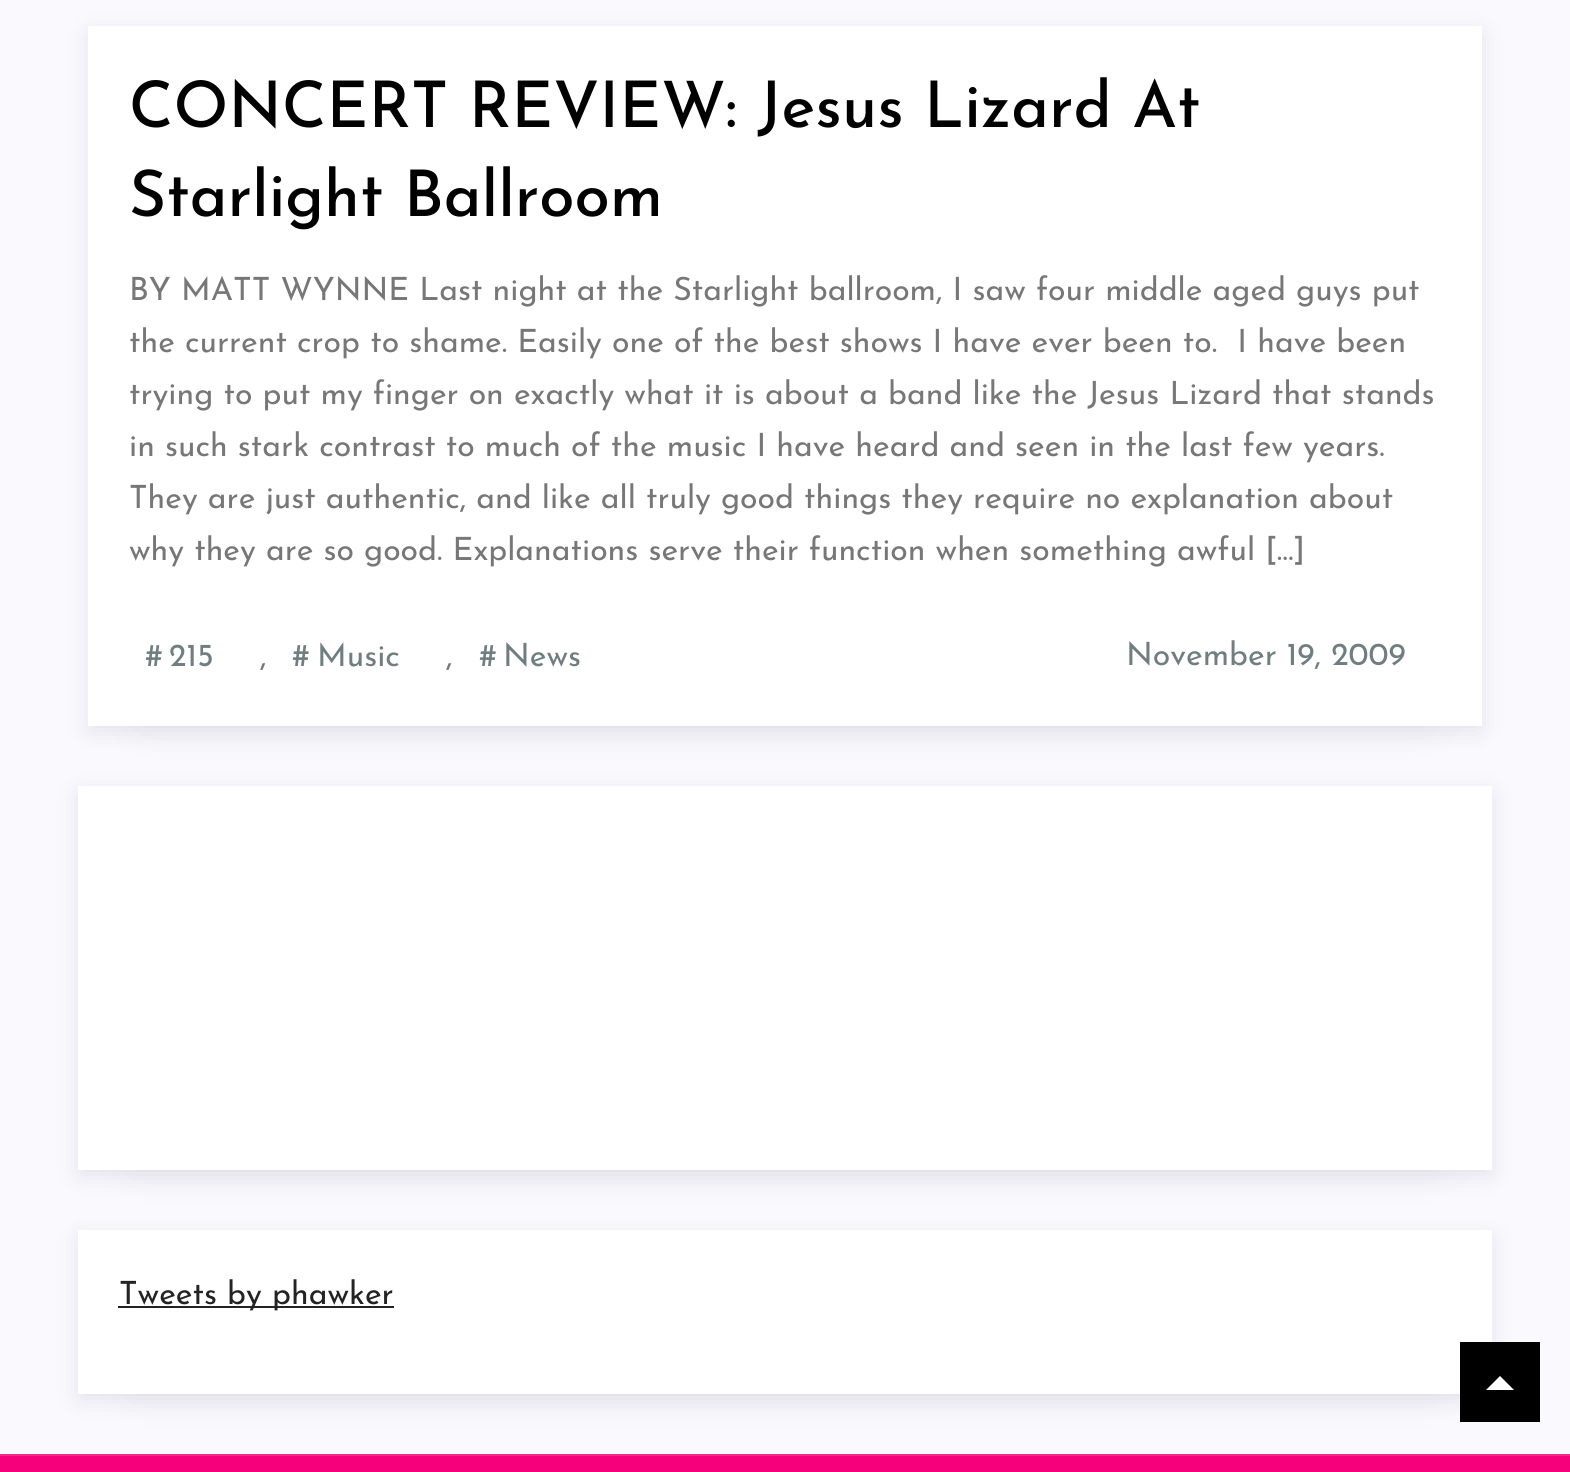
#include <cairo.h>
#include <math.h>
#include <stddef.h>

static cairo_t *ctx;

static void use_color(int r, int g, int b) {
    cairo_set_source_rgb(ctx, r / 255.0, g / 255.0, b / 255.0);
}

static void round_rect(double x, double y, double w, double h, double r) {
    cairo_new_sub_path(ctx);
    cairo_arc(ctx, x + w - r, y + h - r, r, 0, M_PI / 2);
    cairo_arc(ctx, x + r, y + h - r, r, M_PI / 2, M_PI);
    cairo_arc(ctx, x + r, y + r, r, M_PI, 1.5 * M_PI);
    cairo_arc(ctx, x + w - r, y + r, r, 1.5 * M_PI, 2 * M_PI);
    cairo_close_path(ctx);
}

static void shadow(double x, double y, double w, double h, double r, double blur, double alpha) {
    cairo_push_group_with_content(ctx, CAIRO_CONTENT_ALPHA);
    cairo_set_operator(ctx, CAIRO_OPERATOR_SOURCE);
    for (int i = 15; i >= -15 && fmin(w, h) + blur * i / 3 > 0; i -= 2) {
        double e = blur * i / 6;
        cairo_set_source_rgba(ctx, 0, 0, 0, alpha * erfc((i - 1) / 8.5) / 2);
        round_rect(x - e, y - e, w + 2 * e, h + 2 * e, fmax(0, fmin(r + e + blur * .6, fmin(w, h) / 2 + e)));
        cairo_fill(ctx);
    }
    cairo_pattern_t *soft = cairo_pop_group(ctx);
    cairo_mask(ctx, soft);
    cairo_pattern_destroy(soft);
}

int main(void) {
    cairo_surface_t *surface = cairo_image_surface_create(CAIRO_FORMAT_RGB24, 1570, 1472);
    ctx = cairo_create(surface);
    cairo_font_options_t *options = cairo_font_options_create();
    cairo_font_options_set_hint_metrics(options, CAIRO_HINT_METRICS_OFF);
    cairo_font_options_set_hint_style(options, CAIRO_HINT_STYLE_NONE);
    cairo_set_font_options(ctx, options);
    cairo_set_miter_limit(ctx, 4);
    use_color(249, 249, 254);
    cairo_paint(ctx);
    use_color(7, 10, 25);
    shadow(148, 130, 1274, 580, 0, 27, 0.1);
    shadow(90, 34, 1390, 696, 0, 12, 0.1);
    use_color(255, 255, 255);
    cairo_rectangle(ctx, 88, 26, 1394, 700);
    cairo_fill(ctx);
    cairo_select_font_face(ctx, "Josefin Sans Medium", CAIRO_FONT_SLANT_NORMAL, CAIRO_FONT_WEIGHT_NORMAL);
    cairo_set_font_size(ctx, 64);
    use_color(0, 0, 0);
    cairo_move_to(ctx, 129, 127);
    cairo_show_text(ctx, "CONCERT REVIEW: Jesus Lizard At");
    cairo_move_to(ctx, 129, 216);
    cairo_show_text(ctx, "Starlight Ballroom");
    cairo_select_font_face(ctx, "Josefin Sans", CAIRO_FONT_SLANT_NORMAL, CAIRO_FONT_WEIGHT_NORMAL);
    cairo_set_font_size(ctx, 32);
    use_color(119, 119, 119);
    cairo_move_to(ctx, 129, 300);
    cairo_show_text(ctx, "BY MATT WYNNE Last night at the Starlight ballroom, I saw four middle aged guys put");
    cairo_move_to(ctx, 129, 352);
    cairo_show_text(ctx, "the current crop to shame. Easily one of the best shows I have ever been to.  I have been");
    cairo_move_to(ctx, 129, 404);
    cairo_show_text(ctx, "trying to put my finger on exactly what it is about a band like the Jesus Lizard that stands");
    cairo_move_to(ctx, 129, 456);
    cairo_show_text(ctx, "in such stark contrast to much of the music I have heard and seen in the last few years.");
    cairo_move_to(ctx, 129, 508);
    cairo_show_text(ctx, "They are just authentic, and like all truly good things they require no explanation about");
    cairo_move_to(ctx, 129, 560);
    cairo_show_text(ctx, "why they are so good. Explanations serve their function when something awful […]");
    use_color(113, 126, 129);
    cairo_move_to(ctx, 145, 666);
    cairo_show_text(ctx, "#");
    cairo_move_to(ctx, 169, 666);
    cairo_show_text(ctx, "215");
    use_color(119, 119, 119);
    cairo_move_to(ctx, 260, 666);
    cairo_show_text(ctx, ",");
    use_color(113, 126, 129);
    cairo_move_to(ctx, 292, 666);
    cairo_show_text(ctx, "#");
    cairo_move_to(ctx, 317, 666);
    cairo_show_text(ctx, "Music");
    use_color(119, 119, 119);
    cairo_move_to(ctx, 446, 666);
    cairo_show_text(ctx, ",");
    use_color(113, 126, 129);
    cairo_move_to(ctx, 479, 666);
    cairo_show_text(ctx, "#");
    cairo_move_to(ctx, 503, 666);
    cairo_show_text(ctx, "News");
    cairo_move_to(ctx, 1126, 665);
    cairo_show_text(ctx, "November 19, 2009");
    use_color(7, 10, 25);
    shadow(138, 890, 1294, 264, 0, 27, 0.1);
    shadow(80, 794, 1410, 380, 0, 12, 0.1);
    use_color(255, 255, 255);
    cairo_rectangle(ctx, 78, 786, 1414, 384);
    cairo_fill(ctx);
    use_color(246, 0, 123);
    cairo_rectangle(ctx, 0, 1456, 1570, 16);
    cairo_fill(ctx);
    use_color(247, 38, 143);
    cairo_rectangle(ctx, 0, 1454, 1570, 2);
    cairo_fill(ctx);
    use_color(7, 10, 25);
    shadow(138, 1334, 1294, 44, 0, 27, 0.1);
    shadow(80, 1238, 1410, 160, 0, 12, 0.1);
    use_color(255, 255, 255);
    cairo_rectangle(ctx, 78, 1230, 1414, 164);
    cairo_fill(ctx);
    use_color(35, 35, 35);
    cairo_rectangle(ctx, 118, 1306, 276, 2);
    cairo_fill(ctx);
    cairo_move_to(ctx, 119, 1304);
    cairo_show_text(ctx, "Tweets by phawker");
    use_color(0, 0, 0);
    cairo_rectangle(ctx, 1460, 1342, 80, 80);
    cairo_fill(ctx);
    use_color(255, 255, 255);
    cairo_new_path(ctx);
    cairo_move_to(ctx, 1514, 1390);
    cairo_line_to(ctx, 1486, 1390);
    cairo_line_to(ctx, 1500, 1376);
    cairo_close_path(ctx);
    cairo_fill(ctx);
    cairo_surface_write_to_png(surface, "result.png");
    cairo_font_options_destroy(options);
    cairo_destroy(ctx);
    cairo_surface_destroy(surface);
    return 0;
}
